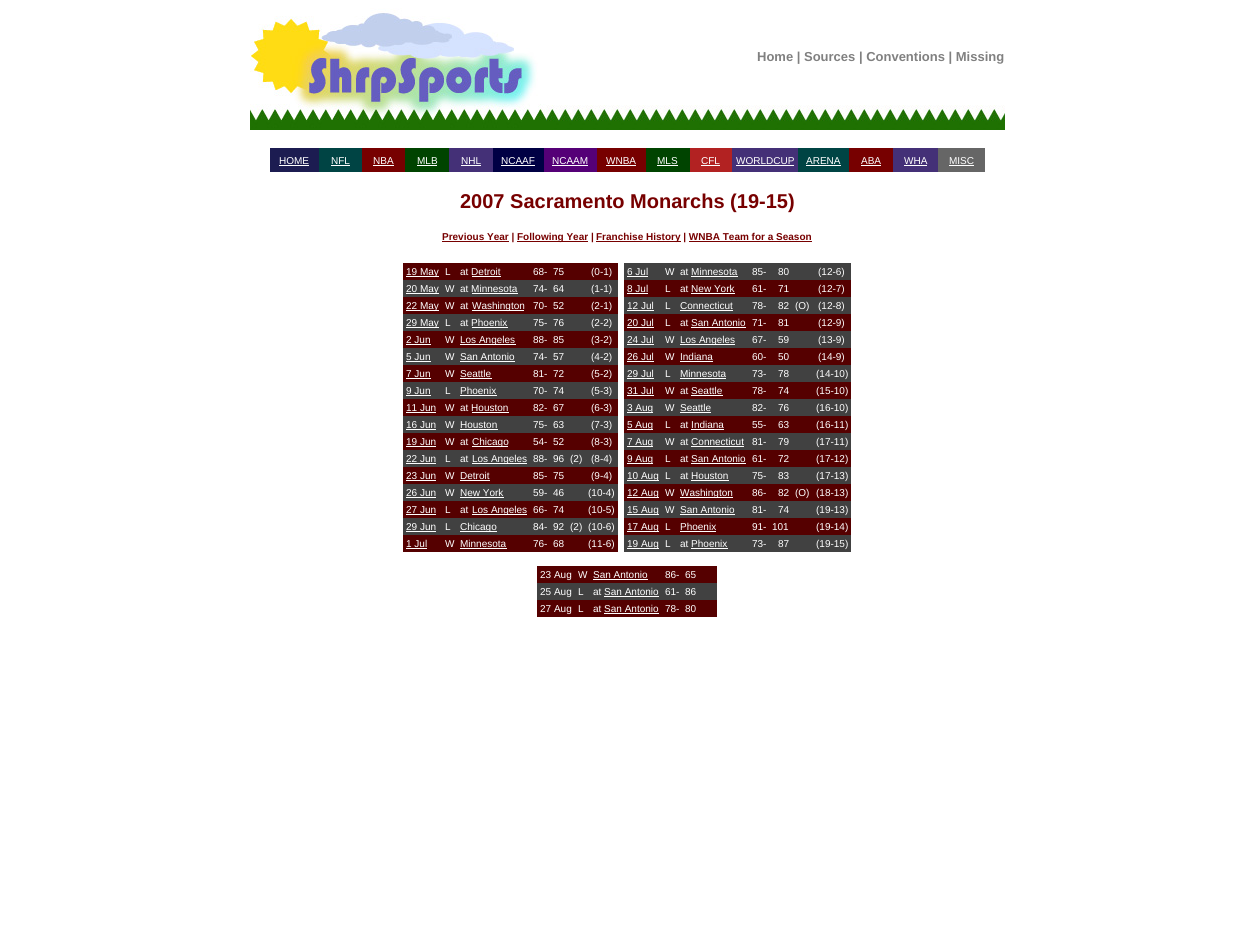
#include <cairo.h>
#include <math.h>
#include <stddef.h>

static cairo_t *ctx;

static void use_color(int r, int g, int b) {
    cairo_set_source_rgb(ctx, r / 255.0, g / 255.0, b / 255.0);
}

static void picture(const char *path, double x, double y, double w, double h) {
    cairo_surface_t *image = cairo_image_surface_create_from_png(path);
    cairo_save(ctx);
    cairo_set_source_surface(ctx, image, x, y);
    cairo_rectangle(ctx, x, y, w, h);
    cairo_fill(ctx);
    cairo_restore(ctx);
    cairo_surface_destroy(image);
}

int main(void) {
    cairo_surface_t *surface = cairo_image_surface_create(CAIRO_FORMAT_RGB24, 1254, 930);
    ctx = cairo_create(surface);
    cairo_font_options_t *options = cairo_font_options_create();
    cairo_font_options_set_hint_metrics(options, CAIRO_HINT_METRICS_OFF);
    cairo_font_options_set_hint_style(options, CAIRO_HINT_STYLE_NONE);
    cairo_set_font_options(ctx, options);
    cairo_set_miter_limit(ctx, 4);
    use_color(255, 255, 255);
    cairo_paint(ctx);
    picture("img1.png", 250, 8, 296, 122);
    cairo_select_font_face(ctx, "Liberation Sans", CAIRO_FONT_SLANT_NORMAL, CAIRO_FONT_WEIGHT_BOLD);
    cairo_set_font_size(ctx, 13);
    use_color(128, 128, 128);
    cairo_move_to(ctx, 757, 61);
    cairo_show_text(ctx, "Home | Sources | Conventions | Missing");
    picture("img2.png", 546, 105, 459, 25);
    use_color(28, 28, 81);
    cairo_rectangle(ctx, 270, 148, 49, 24);
    cairo_fill(ctx);
    cairo_select_font_face(ctx, "Liberation Sans", CAIRO_FONT_SLANT_NORMAL, CAIRO_FONT_WEIGHT_NORMAL);
    cairo_set_font_size(ctx, 10);
    use_color(255, 255, 255);
    cairo_move_to(ctx, 279, 164);
    cairo_show_text(ctx, "HOME");
    cairo_rectangle(ctx, 279, 165, 30, 1);
    cairo_fill(ctx);
    use_color(0, 68, 68);
    cairo_rectangle(ctx, 319, 148, 43, 24);
    cairo_fill(ctx);
    use_color(255, 255, 255);
    cairo_move_to(ctx, 331, 164);
    cairo_show_text(ctx, "NFL");
    cairo_rectangle(ctx, 331, 165, 19, 1);
    cairo_fill(ctx);
    use_color(119, 0, 0);
    cairo_rectangle(ctx, 362, 148, 43, 24);
    cairo_fill(ctx);
    use_color(255, 255, 255);
    cairo_move_to(ctx, 373, 164);
    cairo_show_text(ctx, "NBA");
    cairo_rectangle(ctx, 373, 165, 21, 1);
    cairo_fill(ctx);
    use_color(0, 68, 0);
    cairo_rectangle(ctx, 405, 148, 44, 24);
    cairo_fill(ctx);
    use_color(255, 255, 255);
    cairo_move_to(ctx, 417, 164);
    cairo_show_text(ctx, "MLB");
    cairo_rectangle(ctx, 417, 165, 20, 1);
    cairo_fill(ctx);
    use_color(68, 48, 119);
    cairo_rectangle(ctx, 449, 148, 44, 24);
    cairo_fill(ctx);
    use_color(255, 255, 255);
    cairo_move_to(ctx, 461, 164);
    cairo_show_text(ctx, "NHL");
    cairo_rectangle(ctx, 461, 165, 20, 1);
    cairo_fill(ctx);
    use_color(0, 0, 68);
    cairo_rectangle(ctx, 493, 148, 51, 24);
    cairo_fill(ctx);
    use_color(255, 255, 255);
    cairo_move_to(ctx, 501, 164);
    cairo_show_text(ctx, "NCAAF");
    cairo_rectangle(ctx, 501, 165, 34, 1);
    cairo_fill(ctx);
    use_color(85, 0, 119);
    cairo_rectangle(ctx, 544, 148, 53, 24);
    cairo_fill(ctx);
    use_color(255, 255, 255);
    cairo_move_to(ctx, 552, 164);
    cairo_show_text(ctx, "NCAAM");
    cairo_rectangle(ctx, 552, 165, 36, 1);
    cairo_fill(ctx);
    use_color(119, 0, 0);
    cairo_rectangle(ctx, 597, 148, 49, 24);
    cairo_fill(ctx);
    use_color(255, 255, 255);
    cairo_move_to(ctx, 606, 164);
    cairo_show_text(ctx, "WNBA");
    cairo_rectangle(ctx, 606, 165, 30, 1);
    cairo_fill(ctx);
    use_color(0, 68, 0);
    cairo_rectangle(ctx, 646, 148, 44, 24);
    cairo_fill(ctx);
    use_color(255, 255, 255);
    cairo_move_to(ctx, 657, 164);
    cairo_show_text(ctx, "MLS");
    cairo_rectangle(ctx, 657, 165, 21, 1);
    cairo_fill(ctx);
    use_color(178, 34, 34);
    cairo_rectangle(ctx, 690, 148, 42, 24);
    cairo_fill(ctx);
    use_color(255, 255, 255);
    cairo_move_to(ctx, 701, 164);
    cairo_show_text(ctx, "CFL");
    cairo_rectangle(ctx, 701, 165, 19, 1);
    cairo_fill(ctx);
    use_color(68, 48, 119);
    cairo_rectangle(ctx, 732, 148, 66, 24);
    cairo_fill(ctx);
    use_color(255, 255, 255);
    cairo_move_to(ctx, 736, 164);
    cairo_show_text(ctx, "WORLDCUP");
    cairo_rectangle(ctx, 736, 165, 58, 1);
    cairo_fill(ctx);
    use_color(0, 68, 68);
    cairo_rectangle(ctx, 798, 148, 51, 24);
    cairo_fill(ctx);
    use_color(255, 255, 255);
    cairo_move_to(ctx, 806, 164);
    cairo_show_text(ctx, "ARENA");
    cairo_rectangle(ctx, 806, 165, 35, 1);
    cairo_fill(ctx);
    use_color(119, 0, 0);
    cairo_rectangle(ctx, 849, 148, 44, 24);
    cairo_fill(ctx);
    use_color(255, 255, 255);
    cairo_move_to(ctx, 861, 164);
    cairo_show_text(ctx, "ABA");
    cairo_rectangle(ctx, 861, 165, 20, 1);
    cairo_fill(ctx);
    use_color(68, 48, 119);
    cairo_rectangle(ctx, 893, 148, 45, 24);
    cairo_fill(ctx);
    use_color(255, 255, 255);
    cairo_move_to(ctx, 904, 164);
    cairo_show_text(ctx, "WHA");
    cairo_rectangle(ctx, 904, 165, 23, 1);
    cairo_fill(ctx);
    use_color(102, 102, 102);
    cairo_rectangle(ctx, 938, 148, 47, 24);
    cairo_fill(ctx);
    use_color(255, 255, 255);
    cairo_move_to(ctx, 949, 164);
    cairo_show_text(ctx, "MISC");
    cairo_rectangle(ctx, 949, 165, 25, 1);
    cairo_fill(ctx);
    cairo_select_font_face(ctx, "Liberation Sans", CAIRO_FONT_SLANT_NORMAL, CAIRO_FONT_WEIGHT_BOLD);
    cairo_set_font_size(ctx, 20);
    use_color(119, 0, 0);
    cairo_move_to(ctx, 460, 208);
    cairo_show_text(ctx, "2007 Sacramento Monarchs (19-15)");
    cairo_rectangle(ctx, 442, 241, 67, 1);
    cairo_fill(ctx);
    cairo_set_font_size(ctx, 10);
    cairo_move_to(ctx, 442, 240);
    cairo_show_text(ctx, "Previous Year |");
    cairo_rectangle(ctx, 517, 241, 71, 1);
    cairo_fill(ctx);
    cairo_move_to(ctx, 517, 240);
    cairo_show_text(ctx, "Following Year |");
    cairo_rectangle(ctx, 596, 241, 85, 1);
    cairo_fill(ctx);
    cairo_move_to(ctx, 596, 240);
    cairo_show_text(ctx, "Franchise History | WNBA Team for a Season");
    cairo_rectangle(ctx, 689, 241, 123, 1);
    cairo_fill(ctx);
    use_color(85, 0, 0);
    cairo_rectangle(ctx, 403, 263, 215, 17);
    cairo_fill(ctx);
    use_color(255, 255, 255);
    cairo_rectangle(ctx, 406, 276, 33, 1);
    cairo_fill(ctx);
    cairo_select_font_face(ctx, "Liberation Sans", CAIRO_FONT_SLANT_NORMAL, CAIRO_FONT_WEIGHT_NORMAL);
    cairo_move_to(ctx, 406, 275);
    cairo_show_text(ctx, "19 May");
    cairo_move_to(ctx, 445, 275);
    cairo_show_text(ctx, "L");
    cairo_move_to(ctx, 460, 275);
    cairo_show_text(ctx, "at Detroit");
    cairo_rectangle(ctx, 472, 276, 29, 1);
    cairo_fill(ctx);
    cairo_move_to(ctx, 533, 275);
    cairo_show_text(ctx, "68-");
    cairo_move_to(ctx, 553, 275);
    cairo_show_text(ctx, "75");
    cairo_move_to(ctx, 591, 275);
    cairo_show_text(ctx, "(0-1)");
    use_color(65, 65, 65);
    cairo_rectangle(ctx, 403, 280, 215, 17);
    cairo_fill(ctx);
    use_color(255, 255, 255);
    cairo_rectangle(ctx, 406, 293, 33, 1);
    cairo_fill(ctx);
    cairo_move_to(ctx, 406, 292);
    cairo_show_text(ctx, "20 May");
    cairo_move_to(ctx, 445, 292);
    cairo_show_text(ctx, "W");
    cairo_move_to(ctx, 460, 292);
    cairo_show_text(ctx, "at Minnesota");
    cairo_rectangle(ctx, 472, 293, 46, 1);
    cairo_fill(ctx);
    cairo_move_to(ctx, 533, 292);
    cairo_show_text(ctx, "74-");
    cairo_move_to(ctx, 553, 292);
    cairo_show_text(ctx, "64");
    cairo_move_to(ctx, 591, 292);
    cairo_show_text(ctx, "(1-1)");
    use_color(85, 0, 0);
    cairo_rectangle(ctx, 403, 297, 215, 17);
    cairo_fill(ctx);
    use_color(255, 255, 255);
    cairo_rectangle(ctx, 406, 310, 33, 1);
    cairo_fill(ctx);
    cairo_move_to(ctx, 406, 309);
    cairo_show_text(ctx, "22 May");
    cairo_move_to(ctx, 445, 309);
    cairo_show_text(ctx, "W");
    cairo_move_to(ctx, 460, 309);
    cairo_show_text(ctx, "at");
    cairo_rectangle(ctx, 472, 310, 52, 1);
    cairo_fill(ctx);
    cairo_move_to(ctx, 472, 309);
    cairo_show_text(ctx, "Washington");
    cairo_move_to(ctx, 533, 309);
    cairo_show_text(ctx, "70-");
    cairo_move_to(ctx, 553, 309);
    cairo_show_text(ctx, "52");
    cairo_move_to(ctx, 591, 309);
    cairo_show_text(ctx, "(2-1)");
    use_color(65, 65, 65);
    cairo_rectangle(ctx, 403, 314, 215, 17);
    cairo_fill(ctx);
    use_color(255, 255, 255);
    cairo_rectangle(ctx, 406, 327, 33, 1);
    cairo_fill(ctx);
    cairo_move_to(ctx, 406, 326);
    cairo_show_text(ctx, "29 May");
    cairo_move_to(ctx, 445, 326);
    cairo_show_text(ctx, "L");
    cairo_move_to(ctx, 460, 326);
    cairo_show_text(ctx, "at Phoenix");
    cairo_rectangle(ctx, 472, 327, 36, 1);
    cairo_fill(ctx);
    cairo_move_to(ctx, 533, 326);
    cairo_show_text(ctx, "75-");
    cairo_move_to(ctx, 553, 326);
    cairo_show_text(ctx, "76");
    cairo_move_to(ctx, 591, 326);
    cairo_show_text(ctx, "(2-2)");
    use_color(85, 0, 0);
    cairo_rectangle(ctx, 403, 331, 215, 17);
    cairo_fill(ctx);
    use_color(255, 255, 255);
    cairo_move_to(ctx, 406, 343);
    cairo_show_text(ctx, "2 Jun");
    cairo_rectangle(ctx, 406, 344, 25, 1);
    cairo_fill(ctx);
    cairo_move_to(ctx, 445, 343);
    cairo_show_text(ctx, "W");
    cairo_rectangle(ctx, 460, 344, 56, 1);
    cairo_fill(ctx);
    cairo_move_to(ctx, 460, 343);
    cairo_show_text(ctx, "Los Angeles");
    cairo_move_to(ctx, 533, 343);
    cairo_show_text(ctx, "88-");
    cairo_move_to(ctx, 553, 343);
    cairo_show_text(ctx, "85");
    cairo_move_to(ctx, 591, 343);
    cairo_show_text(ctx, "(3-2)");
    use_color(65, 65, 65);
    cairo_rectangle(ctx, 403, 348, 215, 17);
    cairo_fill(ctx);
    use_color(255, 255, 255);
    cairo_move_to(ctx, 406, 360);
    cairo_show_text(ctx, "5 Jun");
    cairo_rectangle(ctx, 406, 361, 25, 1);
    cairo_fill(ctx);
    cairo_move_to(ctx, 445, 360);
    cairo_show_text(ctx, "W");
    cairo_move_to(ctx, 460, 360);
    cairo_show_text(ctx, "San Antonio");
    cairo_rectangle(ctx, 460, 361, 55, 1);
    cairo_fill(ctx);
    cairo_move_to(ctx, 533, 360);
    cairo_show_text(ctx, "74-");
    cairo_move_to(ctx, 553, 360);
    cairo_show_text(ctx, "57");
    cairo_move_to(ctx, 591, 360);
    cairo_show_text(ctx, "(4-2)");
    use_color(85, 0, 0);
    cairo_rectangle(ctx, 403, 365, 215, 17);
    cairo_fill(ctx);
    use_color(255, 255, 255);
    cairo_move_to(ctx, 406, 377);
    cairo_show_text(ctx, "7 Jun");
    cairo_rectangle(ctx, 406, 378, 25, 1);
    cairo_fill(ctx);
    cairo_move_to(ctx, 445, 377);
    cairo_show_text(ctx, "W");
    cairo_move_to(ctx, 460, 377);
    cairo_show_text(ctx, "Seattle");
    cairo_rectangle(ctx, 460, 378, 32, 1);
    cairo_fill(ctx);
    cairo_move_to(ctx, 533, 377);
    cairo_show_text(ctx, "81-");
    cairo_move_to(ctx, 553, 377);
    cairo_show_text(ctx, "72");
    cairo_move_to(ctx, 591, 377);
    cairo_show_text(ctx, "(5-2)");
    use_color(65, 65, 65);
    cairo_rectangle(ctx, 403, 382, 215, 17);
    cairo_fill(ctx);
    use_color(255, 255, 255);
    cairo_move_to(ctx, 406, 394);
    cairo_show_text(ctx, "9 Jun");
    cairo_rectangle(ctx, 406, 395, 25, 1);
    cairo_fill(ctx);
    cairo_move_to(ctx, 445, 394);
    cairo_show_text(ctx, "L");
    cairo_move_to(ctx, 460, 394);
    cairo_show_text(ctx, "Phoenix");
    cairo_rectangle(ctx, 460, 395, 37, 1);
    cairo_fill(ctx);
    cairo_move_to(ctx, 533, 394);
    cairo_show_text(ctx, "70-");
    cairo_move_to(ctx, 553, 394);
    cairo_show_text(ctx, "74");
    cairo_move_to(ctx, 591, 394);
    cairo_show_text(ctx, "(5-3)");
    use_color(85, 0, 0);
    cairo_rectangle(ctx, 403, 399, 215, 17);
    cairo_fill(ctx);
    use_color(255, 255, 255);
    cairo_move_to(ctx, 406, 411);
    cairo_show_text(ctx, "11 Jun");
    cairo_rectangle(ctx, 406, 412, 30, 1);
    cairo_fill(ctx);
    cairo_move_to(ctx, 445, 411);
    cairo_show_text(ctx, "W");
    cairo_move_to(ctx, 460, 411);
    cairo_show_text(ctx, "at Houston");
    cairo_rectangle(ctx, 472, 412, 37, 1);
    cairo_fill(ctx);
    cairo_move_to(ctx, 533, 411);
    cairo_show_text(ctx, "82-");
    cairo_move_to(ctx, 553, 411);
    cairo_show_text(ctx, "67");
    cairo_move_to(ctx, 591, 411);
    cairo_show_text(ctx, "(6-3)");
    use_color(65, 65, 65);
    cairo_rectangle(ctx, 403, 416, 215, 17);
    cairo_fill(ctx);
    use_color(255, 255, 255);
    cairo_move_to(ctx, 406, 428);
    cairo_show_text(ctx, "16 Jun");
    cairo_rectangle(ctx, 406, 429, 30, 1);
    cairo_fill(ctx);
    cairo_move_to(ctx, 445, 428);
    cairo_show_text(ctx, "W");
    cairo_move_to(ctx, 460, 428);
    cairo_show_text(ctx, "Houston");
    cairo_rectangle(ctx, 460, 429, 38, 1);
    cairo_fill(ctx);
    cairo_move_to(ctx, 533, 428);
    cairo_show_text(ctx, "75-");
    cairo_move_to(ctx, 553, 428);
    cairo_show_text(ctx, "63");
    cairo_move_to(ctx, 591, 428);
    cairo_show_text(ctx, "(7-3)");
    use_color(85, 0, 0);
    cairo_rectangle(ctx, 403, 433, 215, 17);
    cairo_fill(ctx);
    use_color(255, 255, 255);
    cairo_move_to(ctx, 406, 445);
    cairo_show_text(ctx, "19 Jun");
    cairo_rectangle(ctx, 406, 446, 30, 1);
    cairo_fill(ctx);
    cairo_move_to(ctx, 445, 445);
    cairo_show_text(ctx, "W");
    cairo_move_to(ctx, 460, 445);
    cairo_show_text(ctx, "at");
    cairo_rectangle(ctx, 472, 446, 36, 1);
    cairo_fill(ctx);
    cairo_move_to(ctx, 472, 445);
    cairo_show_text(ctx, "Chicago");
    cairo_move_to(ctx, 533, 445);
    cairo_show_text(ctx, "54-");
    cairo_move_to(ctx, 553, 445);
    cairo_show_text(ctx, "52");
    cairo_move_to(ctx, 591, 445);
    cairo_show_text(ctx, "(8-3)");
    use_color(65, 65, 65);
    cairo_rectangle(ctx, 403, 450, 215, 17);
    cairo_fill(ctx);
    use_color(255, 255, 255);
    cairo_move_to(ctx, 406, 462);
    cairo_show_text(ctx, "22 Jun");
    cairo_rectangle(ctx, 406, 463, 30, 1);
    cairo_fill(ctx);
    cairo_move_to(ctx, 445, 462);
    cairo_show_text(ctx, "L");
    cairo_move_to(ctx, 460, 462);
    cairo_show_text(ctx, "at");
    cairo_rectangle(ctx, 472, 463, 55, 1);
    cairo_fill(ctx);
    cairo_move_to(ctx, 472, 462);
    cairo_show_text(ctx, "Los Angeles");
    cairo_move_to(ctx, 533, 462);
    cairo_show_text(ctx, "88-");
    cairo_move_to(ctx, 553, 462);
    cairo_show_text(ctx, "96");
    cairo_move_to(ctx, 570, 462);
    cairo_show_text(ctx, "(2)");
    cairo_move_to(ctx, 591, 462);
    cairo_show_text(ctx, "(8-4)");
    use_color(85, 0, 0);
    cairo_rectangle(ctx, 403, 467, 215, 17);
    cairo_fill(ctx);
    use_color(255, 255, 255);
    cairo_move_to(ctx, 406, 479);
    cairo_show_text(ctx, "23 Jun");
    cairo_rectangle(ctx, 406, 480, 30, 1);
    cairo_fill(ctx);
    cairo_move_to(ctx, 445, 479);
    cairo_show_text(ctx, "W");
    cairo_move_to(ctx, 460, 479);
    cairo_show_text(ctx, "Detroit");
    cairo_rectangle(ctx, 460, 480, 30, 1);
    cairo_fill(ctx);
    cairo_move_to(ctx, 533, 479);
    cairo_show_text(ctx, "85-");
    cairo_move_to(ctx, 553, 479);
    cairo_show_text(ctx, "75");
    cairo_move_to(ctx, 591, 479);
    cairo_show_text(ctx, "(9-4)");
    use_color(65, 65, 65);
    cairo_rectangle(ctx, 403, 484, 215, 17);
    cairo_fill(ctx);
    use_color(255, 255, 255);
    cairo_move_to(ctx, 406, 496);
    cairo_show_text(ctx, "26 Jun");
    cairo_rectangle(ctx, 406, 497, 30, 1);
    cairo_fill(ctx);
    cairo_move_to(ctx, 445, 496);
    cairo_show_text(ctx, "W");
    cairo_move_to(ctx, 460, 496);
    cairo_show_text(ctx, "New York");
    cairo_rectangle(ctx, 460, 497, 44, 1);
    cairo_fill(ctx);
    cairo_move_to(ctx, 533, 496);
    cairo_show_text(ctx, "59-");
    cairo_move_to(ctx, 553, 496);
    cairo_show_text(ctx, "46");
    cairo_move_to(ctx, 588, 496);
    cairo_show_text(ctx, "(10-4)");
    use_color(85, 0, 0);
    cairo_rectangle(ctx, 403, 501, 215, 17);
    cairo_fill(ctx);
    use_color(255, 255, 255);
    cairo_move_to(ctx, 406, 513);
    cairo_show_text(ctx, "27 Jun");
    cairo_rectangle(ctx, 406, 514, 30, 1);
    cairo_fill(ctx);
    cairo_move_to(ctx, 445, 513);
    cairo_show_text(ctx, "L");
    cairo_move_to(ctx, 460, 513);
    cairo_show_text(ctx, "at");
    cairo_rectangle(ctx, 472, 514, 55, 1);
    cairo_fill(ctx);
    cairo_move_to(ctx, 472, 513);
    cairo_show_text(ctx, "Los Angeles");
    cairo_move_to(ctx, 533, 513);
    cairo_show_text(ctx, "66-");
    cairo_move_to(ctx, 553, 513);
    cairo_show_text(ctx, "74");
    cairo_move_to(ctx, 588, 513);
    cairo_show_text(ctx, "(10-5)");
    use_color(65, 65, 65);
    cairo_rectangle(ctx, 403, 518, 215, 17);
    cairo_fill(ctx);
    use_color(255, 255, 255);
    cairo_move_to(ctx, 406, 530);
    cairo_show_text(ctx, "29 Jun");
    cairo_rectangle(ctx, 406, 531, 30, 1);
    cairo_fill(ctx);
    cairo_move_to(ctx, 445, 530);
    cairo_show_text(ctx, "L");
    cairo_rectangle(ctx, 460, 531, 37, 1);
    cairo_fill(ctx);
    cairo_move_to(ctx, 460, 530);
    cairo_show_text(ctx, "Chicago");
    cairo_move_to(ctx, 533, 530);
    cairo_show_text(ctx, "84-");
    cairo_move_to(ctx, 553, 530);
    cairo_show_text(ctx, "92");
    cairo_move_to(ctx, 570, 530);
    cairo_show_text(ctx, "(2)");
    cairo_move_to(ctx, 588, 530);
    cairo_show_text(ctx, "(10-6)");
    use_color(85, 0, 0);
    cairo_rectangle(ctx, 403, 535, 215, 17);
    cairo_fill(ctx);
    use_color(255, 255, 255);
    cairo_move_to(ctx, 406, 547);
    cairo_show_text(ctx, "1 Jul");
    cairo_rectangle(ctx, 406, 548, 21, 1);
    cairo_fill(ctx);
    cairo_move_to(ctx, 445, 547);
    cairo_show_text(ctx, "W");
    cairo_move_to(ctx, 460, 547);
    cairo_show_text(ctx, "Minnesota");
    cairo_rectangle(ctx, 460, 548, 47, 1);
    cairo_fill(ctx);
    cairo_move_to(ctx, 533, 547);
    cairo_show_text(ctx, "76-");
    cairo_move_to(ctx, 553, 547);
    cairo_show_text(ctx, "68");
    cairo_move_to(ctx, 588, 547);
    cairo_show_text(ctx, "(11-6)");
    use_color(65, 65, 65);
    cairo_rectangle(ctx, 624, 263, 227, 17);
    cairo_fill(ctx);
    use_color(255, 255, 255);
    cairo_move_to(ctx, 627, 275);
    cairo_show_text(ctx, "6 Jul");
    cairo_rectangle(ctx, 627, 276, 21, 1);
    cairo_fill(ctx);
    cairo_move_to(ctx, 665, 275);
    cairo_show_text(ctx, "W");
    cairo_move_to(ctx, 680, 275);
    cairo_show_text(ctx, "at Minnesota");
    cairo_rectangle(ctx, 691, 276, 47, 1);
    cairo_fill(ctx);
    cairo_move_to(ctx, 752, 275);
    cairo_show_text(ctx, "85-");
    cairo_move_to(ctx, 778, 275);
    cairo_show_text(ctx, "80");
    cairo_move_to(ctx, 818, 275);
    cairo_show_text(ctx, "(12-6)");
    use_color(85, 0, 0);
    cairo_rectangle(ctx, 624, 280, 227, 17);
    cairo_fill(ctx);
    use_color(255, 255, 255);
    cairo_move_to(ctx, 627, 292);
    cairo_show_text(ctx, "8 Jul");
    cairo_rectangle(ctx, 627, 293, 21, 1);
    cairo_fill(ctx);
    cairo_move_to(ctx, 665, 292);
    cairo_show_text(ctx, "L");
    cairo_move_to(ctx, 680, 292);
    cairo_show_text(ctx, "at New York");
    cairo_rectangle(ctx, 691, 293, 44, 1);
    cairo_fill(ctx);
    cairo_move_to(ctx, 752, 292);
    cairo_show_text(ctx, "61-");
    cairo_move_to(ctx, 778, 292);
    cairo_show_text(ctx, "71");
    cairo_move_to(ctx, 818, 292);
    cairo_show_text(ctx, "(12-7)");
    use_color(65, 65, 65);
    cairo_rectangle(ctx, 624, 297, 227, 17);
    cairo_fill(ctx);
    use_color(255, 255, 255);
    cairo_move_to(ctx, 627, 309);
    cairo_show_text(ctx, "12 Jul");
    cairo_rectangle(ctx, 627, 310, 27, 1);
    cairo_fill(ctx);
    cairo_move_to(ctx, 665, 309);
    cairo_show_text(ctx, "L");
    cairo_move_to(ctx, 680, 309);
    cairo_show_text(ctx, "Connecticut");
    cairo_rectangle(ctx, 680, 310, 53, 1);
    cairo_fill(ctx);
    cairo_move_to(ctx, 752, 309);
    cairo_show_text(ctx, "78-");
    cairo_move_to(ctx, 778, 309);
    cairo_show_text(ctx, "82");
    cairo_move_to(ctx, 795, 309);
    cairo_show_text(ctx, "(O)");
    cairo_move_to(ctx, 818, 309);
    cairo_show_text(ctx, "(12-8)");
    use_color(85, 0, 0);
    cairo_rectangle(ctx, 624, 314, 227, 17);
    cairo_fill(ctx);
    use_color(255, 255, 255);
    cairo_move_to(ctx, 627, 326);
    cairo_show_text(ctx, "20 Jul");
    cairo_rectangle(ctx, 627, 327, 27, 1);
    cairo_fill(ctx);
    cairo_move_to(ctx, 665, 326);
    cairo_show_text(ctx, "L");
    cairo_move_to(ctx, 680, 326);
    cairo_show_text(ctx, "at San Antonio");
    cairo_rectangle(ctx, 691, 327, 55, 1);
    cairo_fill(ctx);
    cairo_move_to(ctx, 752, 326);
    cairo_show_text(ctx, "71-");
    cairo_move_to(ctx, 778, 326);
    cairo_show_text(ctx, "81");
    cairo_move_to(ctx, 818, 326);
    cairo_show_text(ctx, "(12-9)");
    use_color(65, 65, 65);
    cairo_rectangle(ctx, 624, 331, 227, 17);
    cairo_fill(ctx);
    use_color(255, 255, 255);
    cairo_move_to(ctx, 627, 343);
    cairo_show_text(ctx, "24 Jul");
    cairo_rectangle(ctx, 627, 344, 27, 1);
    cairo_fill(ctx);
    cairo_move_to(ctx, 665, 343);
    cairo_show_text(ctx, "W");
    cairo_rectangle(ctx, 680, 344, 55, 1);
    cairo_fill(ctx);
    cairo_move_to(ctx, 680, 343);
    cairo_show_text(ctx, "Los Angeles");
    cairo_move_to(ctx, 752, 343);
    cairo_show_text(ctx, "67-");
    cairo_move_to(ctx, 778, 343);
    cairo_show_text(ctx, "59");
    cairo_move_to(ctx, 818, 343);
    cairo_show_text(ctx, "(13-9)");
    use_color(85, 0, 0);
    cairo_rectangle(ctx, 624, 348, 227, 17);
    cairo_fill(ctx);
    use_color(255, 255, 255);
    cairo_move_to(ctx, 627, 360);
    cairo_show_text(ctx, "26 Jul");
    cairo_rectangle(ctx, 627, 361, 27, 1);
    cairo_fill(ctx);
    cairo_move_to(ctx, 665, 360);
    cairo_show_text(ctx, "W");
    cairo_move_to(ctx, 680, 360);
    cairo_show_text(ctx, "Indiana");
    cairo_rectangle(ctx, 680, 361, 33, 1);
    cairo_fill(ctx);
    cairo_move_to(ctx, 752, 360);
    cairo_show_text(ctx, "60-");
    cairo_move_to(ctx, 778, 360);
    cairo_show_text(ctx, "50");
    cairo_move_to(ctx, 818, 360);
    cairo_show_text(ctx, "(14-9)");
    use_color(65, 65, 65);
    cairo_rectangle(ctx, 624, 365, 227, 17);
    cairo_fill(ctx);
    use_color(255, 255, 255);
    cairo_move_to(ctx, 627, 377);
    cairo_show_text(ctx, "29 Jul");
    cairo_rectangle(ctx, 627, 378, 27, 1);
    cairo_fill(ctx);
    cairo_move_to(ctx, 665, 377);
    cairo_show_text(ctx, "L");
    cairo_move_to(ctx, 680, 377);
    cairo_show_text(ctx, "Minnesota");
    cairo_rectangle(ctx, 680, 378, 46, 1);
    cairo_fill(ctx);
    cairo_move_to(ctx, 752, 377);
    cairo_show_text(ctx, "73-");
    cairo_move_to(ctx, 778, 377);
    cairo_show_text(ctx, "78");
    cairo_move_to(ctx, 816, 377);
    cairo_show_text(ctx, "(14-10)");
    use_color(85, 0, 0);
    cairo_rectangle(ctx, 624, 382, 227, 17);
    cairo_fill(ctx);
    use_color(255, 255, 255);
    cairo_move_to(ctx, 627, 394);
    cairo_show_text(ctx, "31 Jul");
    cairo_rectangle(ctx, 627, 395, 27, 1);
    cairo_fill(ctx);
    cairo_move_to(ctx, 665, 394);
    cairo_show_text(ctx, "W");
    cairo_move_to(ctx, 680, 394);
    cairo_show_text(ctx, "at Seattle");
    cairo_rectangle(ctx, 691, 395, 32, 1);
    cairo_fill(ctx);
    cairo_move_to(ctx, 752, 394);
    cairo_show_text(ctx, "78-");
    cairo_move_to(ctx, 778, 394);
    cairo_show_text(ctx, "74");
    cairo_move_to(ctx, 816, 394);
    cairo_show_text(ctx, "(15-10)");
    use_color(65, 65, 65);
    cairo_rectangle(ctx, 624, 399, 227, 17);
    cairo_fill(ctx);
    use_color(255, 255, 255);
    cairo_rectangle(ctx, 627, 412, 26, 1);
    cairo_fill(ctx);
    cairo_move_to(ctx, 627, 411);
    cairo_show_text(ctx, "3 Aug");
    cairo_move_to(ctx, 665, 411);
    cairo_show_text(ctx, "W");
    cairo_move_to(ctx, 680, 411);
    cairo_show_text(ctx, "Seattle");
    cairo_rectangle(ctx, 680, 412, 31, 1);
    cairo_fill(ctx);
    cairo_move_to(ctx, 752, 411);
    cairo_show_text(ctx, "82-");
    cairo_move_to(ctx, 778, 411);
    cairo_show_text(ctx, "76");
    cairo_move_to(ctx, 816, 411);
    cairo_show_text(ctx, "(16-10)");
    use_color(85, 0, 0);
    cairo_rectangle(ctx, 624, 416, 227, 17);
    cairo_fill(ctx);
    use_color(255, 255, 255);
    cairo_rectangle(ctx, 627, 429, 26, 1);
    cairo_fill(ctx);
    cairo_move_to(ctx, 627, 428);
    cairo_show_text(ctx, "5 Aug");
    cairo_move_to(ctx, 665, 428);
    cairo_show_text(ctx, "L");
    cairo_move_to(ctx, 680, 428);
    cairo_show_text(ctx, "at Indiana");
    cairo_rectangle(ctx, 691, 429, 33, 1);
    cairo_fill(ctx);
    cairo_move_to(ctx, 752, 428);
    cairo_show_text(ctx, "55-");
    cairo_move_to(ctx, 778, 428);
    cairo_show_text(ctx, "63");
    cairo_move_to(ctx, 816, 428);
    cairo_show_text(ctx, "(16-11)");
    use_color(65, 65, 65);
    cairo_rectangle(ctx, 624, 433, 227, 17);
    cairo_fill(ctx);
    use_color(255, 255, 255);
    cairo_rectangle(ctx, 627, 446, 26, 1);
    cairo_fill(ctx);
    cairo_move_to(ctx, 627, 445);
    cairo_show_text(ctx, "7 Aug");
    cairo_move_to(ctx, 665, 445);
    cairo_show_text(ctx, "W");
    cairo_move_to(ctx, 680, 445);
    cairo_show_text(ctx, "at Connecticut");
    cairo_rectangle(ctx, 691, 446, 53, 1);
    cairo_fill(ctx);
    cairo_move_to(ctx, 752, 445);
    cairo_show_text(ctx, "81-");
    cairo_move_to(ctx, 778, 445);
    cairo_show_text(ctx, "79");
    cairo_move_to(ctx, 816, 445);
    cairo_show_text(ctx, "(17-11)");
    use_color(85, 0, 0);
    cairo_rectangle(ctx, 624, 450, 227, 17);
    cairo_fill(ctx);
    use_color(255, 255, 255);
    cairo_rectangle(ctx, 627, 463, 26, 1);
    cairo_fill(ctx);
    cairo_move_to(ctx, 627, 462);
    cairo_show_text(ctx, "9 Aug");
    cairo_move_to(ctx, 665, 462);
    cairo_show_text(ctx, "L");
    cairo_move_to(ctx, 680, 462);
    cairo_show_text(ctx, "at San Antonio");
    cairo_rectangle(ctx, 691, 463, 55, 1);
    cairo_fill(ctx);
    cairo_move_to(ctx, 752, 462);
    cairo_show_text(ctx, "61-");
    cairo_move_to(ctx, 778, 462);
    cairo_show_text(ctx, "72");
    cairo_move_to(ctx, 816, 462);
    cairo_show_text(ctx, "(17-12)");
    use_color(65, 65, 65);
    cairo_rectangle(ctx, 624, 467, 227, 17);
    cairo_fill(ctx);
    use_color(255, 255, 255);
    cairo_rectangle(ctx, 627, 480, 32, 1);
    cairo_fill(ctx);
    cairo_move_to(ctx, 627, 479);
    cairo_show_text(ctx, "10 Aug");
    cairo_move_to(ctx, 665, 479);
    cairo_show_text(ctx, "L");
    cairo_move_to(ctx, 680, 479);
    cairo_show_text(ctx, "at Houston");
    cairo_rectangle(ctx, 691, 480, 38, 1);
    cairo_fill(ctx);
    cairo_move_to(ctx, 752, 479);
    cairo_show_text(ctx, "75-");
    cairo_move_to(ctx, 778, 479);
    cairo_show_text(ctx, "83");
    cairo_move_to(ctx, 816, 479);
    cairo_show_text(ctx, "(17-13)");
    use_color(85, 0, 0);
    cairo_rectangle(ctx, 624, 484, 227, 17);
    cairo_fill(ctx);
    use_color(255, 255, 255);
    cairo_rectangle(ctx, 627, 497, 32, 1);
    cairo_fill(ctx);
    cairo_move_to(ctx, 627, 496);
    cairo_show_text(ctx, "12 Aug");
    cairo_move_to(ctx, 665, 496);
    cairo_show_text(ctx, "W");
    cairo_rectangle(ctx, 680, 497, 53, 1);
    cairo_fill(ctx);
    cairo_move_to(ctx, 680, 496);
    cairo_show_text(ctx, "Washington");
    cairo_move_to(ctx, 752, 496);
    cairo_show_text(ctx, "86-");
    cairo_move_to(ctx, 778, 496);
    cairo_show_text(ctx, "82");
    cairo_move_to(ctx, 795, 496);
    cairo_show_text(ctx, "(O)");
    cairo_move_to(ctx, 816, 496);
    cairo_show_text(ctx, "(18-13)");
    use_color(65, 65, 65);
    cairo_rectangle(ctx, 624, 501, 227, 17);
    cairo_fill(ctx);
    use_color(255, 255, 255);
    cairo_rectangle(ctx, 627, 514, 32, 1);
    cairo_fill(ctx);
    cairo_move_to(ctx, 627, 513);
    cairo_show_text(ctx, "15 Aug");
    cairo_move_to(ctx, 665, 513);
    cairo_show_text(ctx, "W");
    cairo_move_to(ctx, 680, 513);
    cairo_show_text(ctx, "San Antonio");
    cairo_rectangle(ctx, 680, 514, 55, 1);
    cairo_fill(ctx);
    cairo_move_to(ctx, 752, 513);
    cairo_show_text(ctx, "81-");
    cairo_move_to(ctx, 778, 513);
    cairo_show_text(ctx, "74");
    cairo_move_to(ctx, 816, 513);
    cairo_show_text(ctx, "(19-13)");
    use_color(85, 0, 0);
    cairo_rectangle(ctx, 624, 518, 227, 17);
    cairo_fill(ctx);
    use_color(255, 255, 255);
    cairo_rectangle(ctx, 627, 531, 32, 1);
    cairo_fill(ctx);
    cairo_move_to(ctx, 627, 530);
    cairo_show_text(ctx, "17 Aug");
    cairo_move_to(ctx, 665, 530);
    cairo_show_text(ctx, "L");
    cairo_move_to(ctx, 680, 530);
    cairo_show_text(ctx, "Phoenix");
    cairo_rectangle(ctx, 680, 531, 36, 1);
    cairo_fill(ctx);
    cairo_move_to(ctx, 752, 530);
    cairo_show_text(ctx, "91-");
    cairo_move_to(ctx, 772, 530);
    cairo_show_text(ctx, "101");
    cairo_move_to(ctx, 816, 530);
    cairo_show_text(ctx, "(19-14)");
    use_color(65, 65, 65);
    cairo_rectangle(ctx, 624, 535, 227, 17);
    cairo_fill(ctx);
    use_color(255, 255, 255);
    cairo_rectangle(ctx, 627, 548, 32, 1);
    cairo_fill(ctx);
    cairo_move_to(ctx, 627, 547);
    cairo_show_text(ctx, "19 Aug");
    cairo_move_to(ctx, 665, 547);
    cairo_show_text(ctx, "L");
    cairo_move_to(ctx, 680, 547);
    cairo_show_text(ctx, "at Phoenix");
    cairo_rectangle(ctx, 691, 548, 37, 1);
    cairo_fill(ctx);
    cairo_move_to(ctx, 752, 547);
    cairo_show_text(ctx, "73-");
    cairo_move_to(ctx, 778, 547);
    cairo_show_text(ctx, "87");
    cairo_move_to(ctx, 816, 547);
    cairo_show_text(ctx, "(19-15)");
    use_color(85, 0, 0);
    cairo_rectangle(ctx, 537, 566, 180, 17);
    cairo_fill(ctx);
    use_color(255, 255, 255);
    cairo_move_to(ctx, 540, 578);
    cairo_show_text(ctx, "23 Aug");
    cairo_move_to(ctx, 578, 578);
    cairo_show_text(ctx, "W");
    cairo_move_to(ctx, 593, 578);
    cairo_show_text(ctx, "San Antonio");
    cairo_rectangle(ctx, 593, 579, 55, 1);
    cairo_fill(ctx);
    cairo_move_to(ctx, 665, 578);
    cairo_show_text(ctx, "86-");
    cairo_move_to(ctx, 685, 578);
    cairo_show_text(ctx, "65");
    use_color(65, 65, 65);
    cairo_rectangle(ctx, 537, 583, 180, 17);
    cairo_fill(ctx);
    use_color(255, 255, 255);
    cairo_move_to(ctx, 540, 595);
    cairo_show_text(ctx, "25 Aug");
    cairo_move_to(ctx, 578, 595);
    cairo_show_text(ctx, "L");
    cairo_move_to(ctx, 593, 595);
    cairo_show_text(ctx, "at San Antonio");
    cairo_rectangle(ctx, 604, 596, 55, 1);
    cairo_fill(ctx);
    cairo_move_to(ctx, 665, 595);
    cairo_show_text(ctx, "61-");
    cairo_move_to(ctx, 685, 595);
    cairo_show_text(ctx, "86");
    use_color(85, 0, 0);
    cairo_rectangle(ctx, 537, 600, 180, 17);
    cairo_fill(ctx);
    use_color(255, 255, 255);
    cairo_move_to(ctx, 540, 612);
    cairo_show_text(ctx, "27 Aug");
    cairo_move_to(ctx, 578, 612);
    cairo_show_text(ctx, "L");
    cairo_move_to(ctx, 593, 612);
    cairo_show_text(ctx, "at San Antonio");
    cairo_rectangle(ctx, 604, 613, 55, 1);
    cairo_fill(ctx);
    cairo_move_to(ctx, 665, 612);
    cairo_show_text(ctx, "78-");
    cairo_move_to(ctx, 685, 612);
    cairo_show_text(ctx, "80");
    cairo_surface_write_to_png(surface, "result.png");
    cairo_font_options_destroy(options);
    cairo_destroy(ctx);
    cairo_surface_destroy(surface);
    return 0;
}
